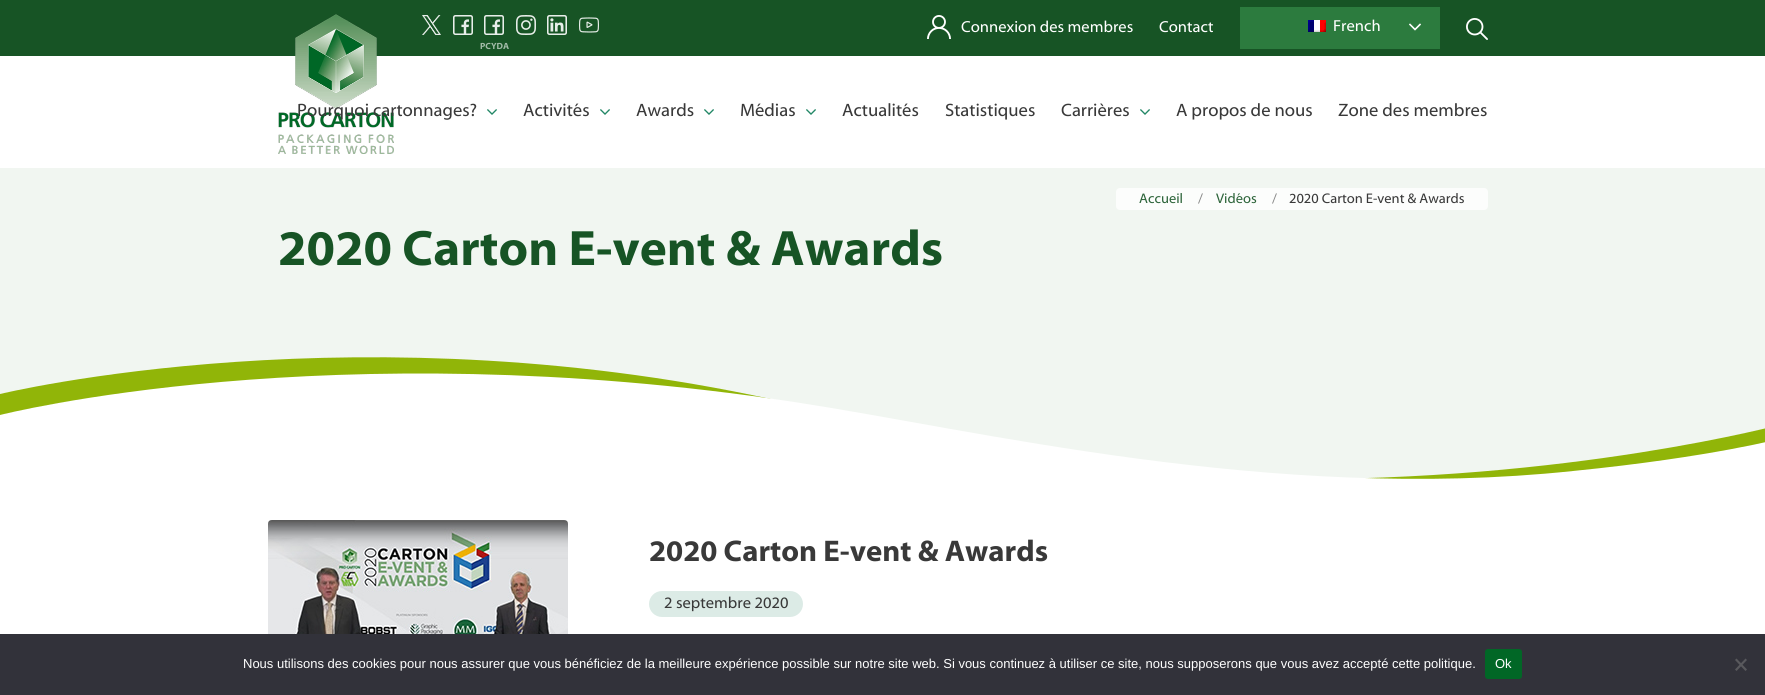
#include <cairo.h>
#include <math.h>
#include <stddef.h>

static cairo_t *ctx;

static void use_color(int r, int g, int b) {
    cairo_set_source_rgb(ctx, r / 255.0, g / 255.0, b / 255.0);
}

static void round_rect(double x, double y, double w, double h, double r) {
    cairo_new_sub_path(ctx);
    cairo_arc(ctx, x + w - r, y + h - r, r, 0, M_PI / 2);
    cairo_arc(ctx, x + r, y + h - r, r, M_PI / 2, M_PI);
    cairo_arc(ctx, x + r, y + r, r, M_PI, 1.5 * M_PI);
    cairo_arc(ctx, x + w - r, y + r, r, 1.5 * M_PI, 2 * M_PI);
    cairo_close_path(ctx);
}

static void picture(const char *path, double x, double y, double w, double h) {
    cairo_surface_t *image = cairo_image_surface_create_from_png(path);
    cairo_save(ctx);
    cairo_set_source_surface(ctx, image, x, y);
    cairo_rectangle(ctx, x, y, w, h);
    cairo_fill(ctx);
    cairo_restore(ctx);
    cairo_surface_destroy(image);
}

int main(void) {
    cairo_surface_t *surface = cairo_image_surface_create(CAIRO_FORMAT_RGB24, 1765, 695);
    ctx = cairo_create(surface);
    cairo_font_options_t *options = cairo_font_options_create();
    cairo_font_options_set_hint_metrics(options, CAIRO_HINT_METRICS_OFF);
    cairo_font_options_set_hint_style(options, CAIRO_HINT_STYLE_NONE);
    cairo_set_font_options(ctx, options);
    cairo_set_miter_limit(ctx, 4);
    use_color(255, 255, 255);
    cairo_paint(ctx);
    use_color(23, 84, 37);
    cairo_rectangle(ctx, 0, 0, 1765, 56);
    cairo_fill(ctx);
    picture("img1.png", 927, 15, 24, 24);
    cairo_select_font_face(ctx, "Myriad", CAIRO_FONT_SLANT_NORMAL, CAIRO_FONT_WEIGHT_NORMAL);
    cairo_set_font_size(ctx, 16);
    use_color(255, 255, 255);
    cairo_move_to(ctx, 961, 32);
    cairo_show_text(ctx, "Connexion des membres");
    cairo_move_to(ctx, 1159, 32);
    cairo_show_text(ctx, "Contact");
    use_color(44, 123, 62);
    cairo_rectangle(ctx, 1240, 7, 200, 42);
    cairo_fill(ctx);
    picture("img2.png", 1308, 20, 18, 12);
    use_color(255, 255, 255);
    cairo_move_to(ctx, 1333, 31);
    cairo_show_text(ctx, "French");
    picture("img3.png", 1409, 23, 12, 8);
    picture("img4.png", 1466, 18, 22, 22);
    picture("img5.png", 422, 15, 19, 20);
    picture("img6.png", 453, 15, 20, 20);
    picture("img7.png", 516, 15, 20, 20);
    picture("img8.png", 547, 15, 20, 20);
    picture("img9.png", 579, 17, 20, 16);
    picture("img6.png", 484, 15, 20, 20);
    cairo_select_font_face(ctx, "Myriad", CAIRO_FONT_SLANT_NORMAL, CAIRO_FONT_WEIGHT_BOLD);
    cairo_set_font_size(ctx, 9);
    use_color(162, 187, 168);
    cairo_move_to(ctx, 480, 49);
    cairo_show_text(ctx, "PCYDA");
    picture("img10.png", 278, 14, 116, 140);
    cairo_select_font_face(ctx, "Myriad", CAIRO_FONT_SLANT_NORMAL, CAIRO_FONT_WEIGHT_NORMAL);
    cairo_set_font_size(ctx, 18);
    use_color(57, 57, 57);
    cairo_move_to(ctx, 297, 116);
    cairo_show_text(ctx, "Pourquoi cartonnages?");
    picture("img11.png", 487, 109, 10, 6);
    cairo_move_to(ctx, 523, 116);
    cairo_show_text(ctx, "Activités");
    picture("img11.png", 600, 109, 10, 6);
    cairo_move_to(ctx, 636, 116);
    cairo_show_text(ctx, "Awards");
    picture("img11.png", 704, 109, 10, 6);
    cairo_move_to(ctx, 740, 116);
    cairo_show_text(ctx, "Médias");
    picture("img11.png", 806, 109, 10, 6);
    cairo_move_to(ctx, 842, 116);
    cairo_show_text(ctx, "Actualités");
    cairo_move_to(ctx, 945, 116);
    cairo_show_text(ctx, "Statistiques");
    cairo_move_to(ctx, 1061, 116);
    cairo_show_text(ctx, "Carrières");
    picture("img11.png", 1140, 109, 10, 6);
    cairo_move_to(ctx, 1176, 116);
    cairo_show_text(ctx, "A propos de nous");
    cairo_move_to(ctx, 1338, 116);
    cairo_show_text(ctx, "Zone des membres");
    use_color(241, 246, 241);
    cairo_rectangle(ctx, 0, 168, 1765, 311);
    cairo_fill(ctx);
    use_color(252, 253, 252);
    round_rect(1116, 188, 372, 22, 4);
    cairo_fill(ctx);
    cairo_set_font_size(ctx, 14);
    use_color(46, 101, 59);
    cairo_move_to(ctx, 1139, 203);
    cairo_show_text(ctx, "Accueil");
    use_color(135, 135, 135);
    cairo_move_to(ctx, 1198, 203);
    cairo_show_text(ctx, "/");
    use_color(46, 101, 59);
    cairo_move_to(ctx, 1216, 203);
    cairo_show_text(ctx, "Vidéos");
    use_color(135, 135, 135);
    cairo_move_to(ctx, 1272, 203);
    cairo_show_text(ctx, "/");
    use_color(57, 57, 57);
    cairo_move_to(ctx, 1289, 203);
    cairo_show_text(ctx, "2020 Carton E-vent & Awards");
    cairo_select_font_face(ctx, "Myriad", CAIRO_FONT_SLANT_NORMAL, CAIRO_FONT_WEIGHT_BOLD);
    cairo_set_font_size(ctx, 50);
    use_color(23, 84, 37);
    cairo_move_to(ctx, 278, 265);
    cairo_show_text(ctx, "2020 Carton E-vent & Awards");
    use_color(145, 181, 8);
    cairo_set_fill_rule(ctx, CAIRO_FILL_RULE_EVEN_ODD);
    cairo_new_path(ctx);
    cairo_move_to(ctx, 0, 394);
    cairo_curve_to(ctx, 0, 394, 365, 305, 793, 404);
    cairo_curve_to(ctx, 969, 445, 920, 475, 1278, 479);
    cairo_curve_to(ctx, 1569, 482, 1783, 424, 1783, 424);
    cairo_line_to(ctx, 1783, 527);
    cairo_line_to(ctx, 0, 527);
    cairo_close_path(ctx);
    cairo_fill(ctx);
    cairo_save(ctx);
    cairo_set_fill_rule(ctx, CAIRO_FILL_RULE_WINDING);
    cairo_rectangle(ctx, 0, 357, 1765, 181);
    cairo_clip(ctx);
    use_color(255, 255, 255);
    cairo_set_fill_rule(ctx, CAIRO_FILL_RULE_EVEN_ODD);
    cairo_new_path(ctx);
    cairo_move_to(ctx, 0, 415);
    cairo_curve_to(ctx, 0, 415, 328, 331, 794, 402);
    cairo_curve_to(ctx, 973, 429, 1271, 503, 1573, 471);
    cairo_curve_to(ctx, 1713, 457, 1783, 438, 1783, 438);
    cairo_line_to(ctx, 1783, 538);
    cairo_line_to(ctx, 0, 539);
    cairo_close_path(ctx);
    cairo_fill(ctx);
    cairo_restore(ctx);
    picture("img12.png", 268, 520, 300, 114);
    cairo_set_font_size(ctx, 30);
    use_color(57, 57, 57);
    cairo_move_to(ctx, 649, 561);
    cairo_show_text(ctx, "2020 Carton E-vent & Awards");
    use_color(220, 235, 230);
    round_rect(649, 591, 154, 26, 13);
    cairo_fill(ctx);
    cairo_select_font_face(ctx, "Myriad", CAIRO_FONT_SLANT_NORMAL, CAIRO_FONT_WEIGHT_NORMAL);
    cairo_set_font_size(ctx, 16);
    use_color(57, 57, 57);
    cairo_move_to(ctx, 664, 608);
    cairo_show_text(ctx, "2 septembre 2020");
    use_color(50, 50, 58);
    cairo_rectangle(ctx, 0, 634, 1765, 61);
    cairo_fill(ctx);
    cairo_select_font_face(ctx, "Liberation Sans", CAIRO_FONT_SLANT_NORMAL, CAIRO_FONT_WEIGHT_NORMAL);
    cairo_set_font_size(ctx, 13);
    use_color(255, 255, 255);
    cairo_move_to(ctx, 243, 668);
    cairo_show_text(ctx, "Nous utilisons des cookies pour nous assurer que vous bénéficiez de la meilleure expérience possible sur notre site web. Si vous continuez à utiliser ce site, nous supposerons que vous avez accepté cette politique.");
    use_color(1, 103, 38);
    round_rect(1485, 649, 37, 30, 3);
    cairo_fill(ctx);
    use_color(255, 255, 255);
    cairo_move_to(ctx, 1495, 668);
    cairo_show_text(ctx, "Ok");
    use_color(89, 89, 93);
    cairo_set_fill_rule(ctx, CAIRO_FILL_RULE_WINDING);
    cairo_new_path(ctx);
    cairo_move_to(ctx, 1745.5, 658.5);
    cairo_line_to(ctx, 1747, 660);
    cairo_line_to(ctx, 1736.5, 671);
    cairo_line_to(ctx, 1735, 669.5);
    cairo_close_path(ctx);
    cairo_fill(ctx);
    cairo_new_path(ctx);
    cairo_move_to(ctx, 1735, 660);
    cairo_line_to(ctx, 1736.5, 658.5);
    cairo_line_to(ctx, 1747, 669.5);
    cairo_line_to(ctx, 1745.5, 671);
    cairo_close_path(ctx);
    cairo_fill(ctx);
    cairo_surface_write_to_png(surface, "result.png");
    cairo_font_options_destroy(options);
    cairo_destroy(ctx);
    cairo_surface_destroy(surface);
    return 0;
}
